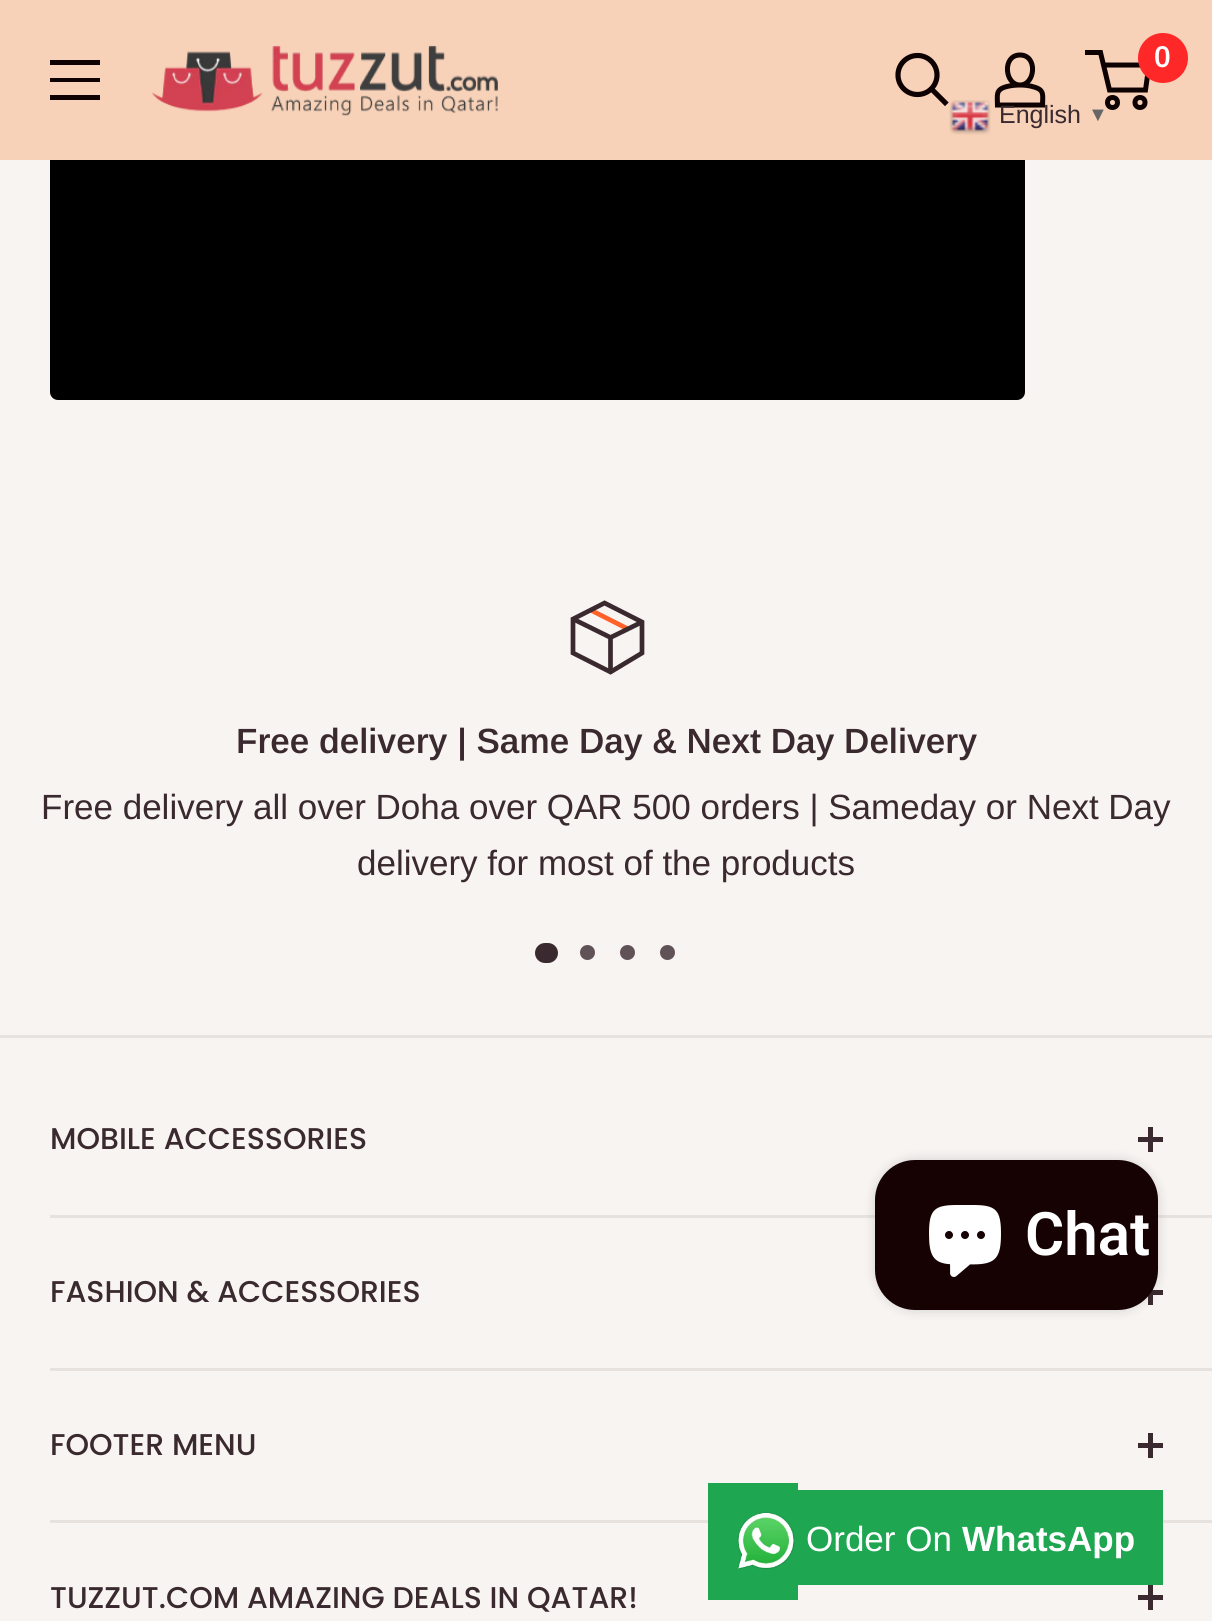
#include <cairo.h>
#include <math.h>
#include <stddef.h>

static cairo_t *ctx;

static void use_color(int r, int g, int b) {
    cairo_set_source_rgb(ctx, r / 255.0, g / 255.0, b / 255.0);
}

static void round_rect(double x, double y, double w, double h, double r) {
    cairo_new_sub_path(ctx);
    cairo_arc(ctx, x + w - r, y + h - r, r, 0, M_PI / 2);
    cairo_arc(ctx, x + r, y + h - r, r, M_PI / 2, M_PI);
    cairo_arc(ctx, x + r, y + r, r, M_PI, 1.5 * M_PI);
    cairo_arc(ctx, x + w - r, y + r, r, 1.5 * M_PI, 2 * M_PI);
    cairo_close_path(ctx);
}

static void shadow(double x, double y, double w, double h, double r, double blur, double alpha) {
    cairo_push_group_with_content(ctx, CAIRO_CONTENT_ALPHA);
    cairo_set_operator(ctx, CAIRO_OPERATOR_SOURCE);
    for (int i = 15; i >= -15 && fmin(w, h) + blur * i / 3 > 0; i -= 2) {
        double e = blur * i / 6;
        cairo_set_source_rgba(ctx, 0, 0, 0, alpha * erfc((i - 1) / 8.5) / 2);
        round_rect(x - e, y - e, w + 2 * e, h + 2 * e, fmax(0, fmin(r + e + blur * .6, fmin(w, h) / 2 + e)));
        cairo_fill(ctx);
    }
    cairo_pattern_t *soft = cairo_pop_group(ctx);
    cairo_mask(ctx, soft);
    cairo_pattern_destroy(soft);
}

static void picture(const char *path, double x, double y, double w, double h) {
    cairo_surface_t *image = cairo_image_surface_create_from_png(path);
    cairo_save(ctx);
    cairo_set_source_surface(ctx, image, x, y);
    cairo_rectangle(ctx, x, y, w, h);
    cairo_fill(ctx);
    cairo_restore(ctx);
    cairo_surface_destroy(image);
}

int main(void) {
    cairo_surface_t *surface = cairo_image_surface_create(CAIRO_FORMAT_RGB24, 1212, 1621);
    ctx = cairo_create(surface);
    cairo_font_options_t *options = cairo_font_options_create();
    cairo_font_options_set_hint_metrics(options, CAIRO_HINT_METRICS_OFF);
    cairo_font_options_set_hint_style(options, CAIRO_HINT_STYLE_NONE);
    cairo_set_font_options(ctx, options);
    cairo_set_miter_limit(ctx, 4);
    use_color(247, 244, 242);
    cairo_paint(ctx);
    use_color(0, 0, 0);
    round_rect(50, -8, 975, 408, 8);
    cairo_fill(ctx);
    use_color(247, 210, 185);
    cairo_rectangle(ctx, 0, 0, 1212, 160);
    cairo_fill(ctx);
    picture("img1.png", 152, 45, 346, 71);
    cairo_new_path(ctx);
    cairo_move_to(ctx, 945, 102.5);
    cairo_line_to(ctx, 931.5, 89);
    use_color(14, 1, 1);
    cairo_set_line_width(ctx, 5.2);
    cairo_set_line_cap(ctx, CAIRO_LINE_CAP_SQUARE);
    cairo_stroke(ctx);
    cairo_arc(ctx, 917.5, 75, 19.5, 0, 2 * M_PI);
    cairo_set_line_cap(ctx, CAIRO_LINE_CAP_BUTT);
    cairo_stroke(ctx);
    cairo_new_path(ctx);
    cairo_move_to(ctx, 1020, 85);
    cairo_curve_to(ctx, 1024.5, 85, 1029.5, 85.5, 1034, 87);
    cairo_curve_to(ctx, 1045, 90, 1042.5, 95.5, 1042.5, 105);
    cairo_line_to(ctx, 997.5, 105);
    cairo_curve_to(ctx, 997.5, 95, 995, 89.5, 1007, 86.5);
    cairo_curve_to(ctx, 1011, 85.5, 1015.5, 85, 1020, 85);
    cairo_close_path(ctx);
    cairo_move_to(ctx, 1020, 85);
    cairo_curve_to(ctx, 1004.5, 85, 1002, 55, 1020, 55);
    cairo_curve_to(ctx, 1038, 55, 1035.5, 85, 1020, 85);
    cairo_close_path(ctx);
    cairo_set_line_width(ctx, 5);
    cairo_stroke(ctx);
    cairo_arc(ctx, 1112.5, 102.5, 5, 0, 2 * M_PI);
    cairo_stroke(ctx);
    cairo_arc(ctx, 1140, 102.5, 5, 0, 2 * M_PI);
    cairo_stroke(ctx);
    cairo_new_path(ctx);
    cairo_move_to(ctx, 1103.5, 65);
    cairo_line_to(ctx, 1149, 65);
    cairo_line_to(ctx, 1145.5, 90);
    cairo_line_to(ctx, 1109.5, 90);
    cairo_line_to(ctx, 1100.5, 52.5);
    cairo_line_to(ctx, 1085, 52.5);
    cairo_stroke(ctx);
    use_color(255, 40, 40);
    cairo_arc(ctx, 1163, 58, 25, 0, 2 * M_PI);
    cairo_fill(ctx);
    cairo_select_font_face(ctx, "Arimo SemiBold", CAIRO_FONT_SLANT_NORMAL, CAIRO_FONT_WEIGHT_NORMAL);
    cairo_set_font_size(ctx, 30);
    use_color(255, 255, 255);
    cairo_move_to(ctx, 1154, 67);
    cairo_show_text(ctx, "0");
    use_color(14, 1, 1);
    cairo_set_fill_rule(ctx, CAIRO_FILL_RULE_EVEN_ODD);
    cairo_new_path(ctx);
    cairo_move_to(ctx, 50, 95);
    cairo_line_to(ctx, 100, 95);
    cairo_line_to(ctx, 100, 100);
    cairo_line_to(ctx, 50, 100);
    cairo_close_path(ctx);
    cairo_move_to(ctx, 50, 60);
    cairo_line_to(ctx, 100, 60);
    cairo_line_to(ctx, 100, 65);
    cairo_line_to(ctx, 50, 65);
    cairo_close_path(ctx);
    cairo_move_to(ctx, 50, 78);
    cairo_line_to(ctx, 100, 78);
    cairo_line_to(ctx, 100, 82);
    cairo_line_to(ctx, 50, 82);
    cairo_close_path(ctx);
    cairo_fill(ctx);
    picture("img2.png", 949, 100, 42, 35);
    cairo_select_font_face(ctx, "Arimo", CAIRO_FONT_SLANT_NORMAL, CAIRO_FONT_WEIGHT_NORMAL);
    cairo_set_font_size(ctx, 25);
    use_color(58, 42, 47);
    cairo_move_to(ctx, 999, 123);
    cairo_show_text(ctx, "English");
    cairo_select_font_face(ctx, "Liberation Sans", CAIRO_FONT_SLANT_NORMAL, CAIRO_FONT_WEIGHT_BOLD);
    cairo_set_font_size(ctx, 20);
    use_color(102, 102, 102);
    cairo_move_to(ctx, 1088, 121);
    cairo_show_text(ctx, "▼");
    cairo_new_path(ctx);
    cairo_move_to(ctx, 590.5, 610);
    cairo_line_to(ctx, 628, 629);
    use_color(255, 97, 40);
    cairo_set_line_width(ctx, 4.7);
    cairo_stroke(ctx);
    cairo_new_path(ctx);
    cairo_move_to(ctx, 642, 622);
    cairo_line_to(ctx, 610.5, 637.5);
    cairo_line_to(ctx, 573, 619);
    cairo_move_to(ctx, 610.5, 637.5);
    cairo_line_to(ctx, 610.5, 672);
    use_color(58, 42, 47);
    cairo_stroke(ctx);
    cairo_new_path(ctx);
    cairo_move_to(ctx, 642, 622);
    cairo_line_to(ctx, 642, 653);
    cairo_line_to(ctx, 610.5, 672);
    cairo_line_to(ctx, 573, 653);
    cairo_line_to(ctx, 573, 619);
    cairo_line_to(ctx, 604.5, 603);
    cairo_close_path(ctx);
    cairo_set_line_cap(ctx, CAIRO_LINE_CAP_SQUARE);
    cairo_stroke(ctx);
    cairo_select_font_face(ctx, "Arimo SemiBold", CAIRO_FONT_SLANT_NORMAL, CAIRO_FONT_WEIGHT_NORMAL);
    cairo_set_font_size(ctx, 35);
    cairo_move_to(ctx, 236, 753);
    cairo_show_text(ctx, "Free delivery | Same Day & Next Day Delivery");
    cairo_select_font_face(ctx, "Arimo", CAIRO_FONT_SLANT_NORMAL, CAIRO_FONT_WEIGHT_NORMAL);
    cairo_move_to(ctx, 41, 819);
    cairo_show_text(ctx, "Free delivery all over Doha over QAR 500 orders | Sameday or Next Day");
    cairo_move_to(ctx, 357, 875);
    cairo_show_text(ctx, "delivery for most of the products");
    round_rect(535, 943, 23, 20, 10);
    cairo_fill(ctx);
    use_color(96, 82, 86);
    cairo_arc(ctx, 587.5, 952.5, 7.5, 0, 2 * M_PI);
    cairo_fill(ctx);
    cairo_arc(ctx, 627.5, 952.5, 7.5, 0, 2 * M_PI);
    cairo_fill(ctx);
    cairo_arc(ctx, 667.5, 952.5, 7.5, 0, 2 * M_PI);
    cairo_fill(ctx);
    use_color(231, 226, 222);
    cairo_rectangle(ctx, 0, 1035, 1212, 3);
    cairo_fill(ctx);
    cairo_rectangle(ctx, 50, 1215, 1162, 3);
    cairo_fill(ctx);
    cairo_select_font_face(ctx, "Poppins Medium", CAIRO_FONT_SLANT_NORMAL, CAIRO_FONT_WEIGHT_NORMAL);
    cairo_set_font_size(ctx, 30);
    use_color(58, 42, 47);
    cairo_move_to(ctx, 50, 1149);
    cairo_show_text(ctx, "MOBILE ACCESSORIES");
    cairo_rectangle(ctx, 1148, 1127, 5, 25);
    cairo_fill(ctx);
    cairo_rectangle(ctx, 1138, 1137, 25, 5);
    cairo_fill(ctx);
    use_color(231, 226, 222);
    cairo_rectangle(ctx, 50, 1368, 1162, 3);
    cairo_fill(ctx);
    use_color(58, 42, 47);
    cairo_move_to(ctx, 50, 1302);
    cairo_show_text(ctx, "FASHION & ACCESSORIES");
    cairo_rectangle(ctx, 1148, 1289, 5, 16);
    cairo_fill(ctx);
    cairo_rectangle(ctx, 1149, 1290, 14, 5);
    cairo_fill(ctx);
    use_color(231, 226, 222);
    cairo_rectangle(ctx, 50, 1520, 1162, 3);
    cairo_fill(ctx);
    use_color(58, 42, 47);
    cairo_move_to(ctx, 50, 1455);
    cairo_show_text(ctx, "FOOTER MENU");
    cairo_rectangle(ctx, 1148, 1433, 5, 25);
    cairo_fill(ctx);
    cairo_rectangle(ctx, 1138, 1443, 25, 5);
    cairo_fill(ctx);
    cairo_move_to(ctx, 50, 1608);
    cairo_show_text(ctx, "TUZZUT.COM AMAZING DEALS IN QATAR!");
    cairo_rectangle(ctx, 1148, 1585, 5, 25);
    cairo_fill(ctx);
    cairo_rectangle(ctx, 1138, 1595, 25, 5);
    cairo_fill(ctx);
    use_color(0, 0, 0);
    shadow(875, 1160, 283, 150, 40, 6, 0.15);
    use_color(22, 2, 2);
    round_rect(875, 1160, 283, 150, 40);
    cairo_fill(ctx);
    picture("img3.png", 929, 1205, 72, 72);
    cairo_select_font_face(ctx, "Roboto SemiBold", CAIRO_FONT_SLANT_NORMAL, CAIRO_FONT_WEIGHT_NORMAL);
    cairo_set_font_size(ctx, 60);
    use_color(255, 255, 255);
    cairo_move_to(ctx, 1025, 1255);
    cairo_show_text(ctx, "Chat");
    use_color(30, 166, 81);
    cairo_rectangle(ctx, 708, 1483, 90, 117);
    cairo_fill(ctx);
    picture("img4.png", 737, 1512, 58, 58);
    cairo_rectangle(ctx, 798, 1490, 365, 95);
    cairo_fill(ctx);
    cairo_select_font_face(ctx, "Arimo", CAIRO_FONT_SLANT_NORMAL, CAIRO_FONT_WEIGHT_NORMAL);
    cairo_set_font_size(ctx, 35);
    use_color(255, 255, 255);
    cairo_move_to(ctx, 806, 1551);
    cairo_show_text(ctx, "Order On");
    cairo_select_font_face(ctx, "Arimo", CAIRO_FONT_SLANT_NORMAL, CAIRO_FONT_WEIGHT_BOLD);
    cairo_move_to(ctx, 962, 1551);
    cairo_show_text(ctx, "WhatsApp");
    cairo_surface_write_to_png(surface, "result.png");
    cairo_font_options_destroy(options);
    cairo_destroy(ctx);
    cairo_surface_destroy(surface);
    return 0;
}
